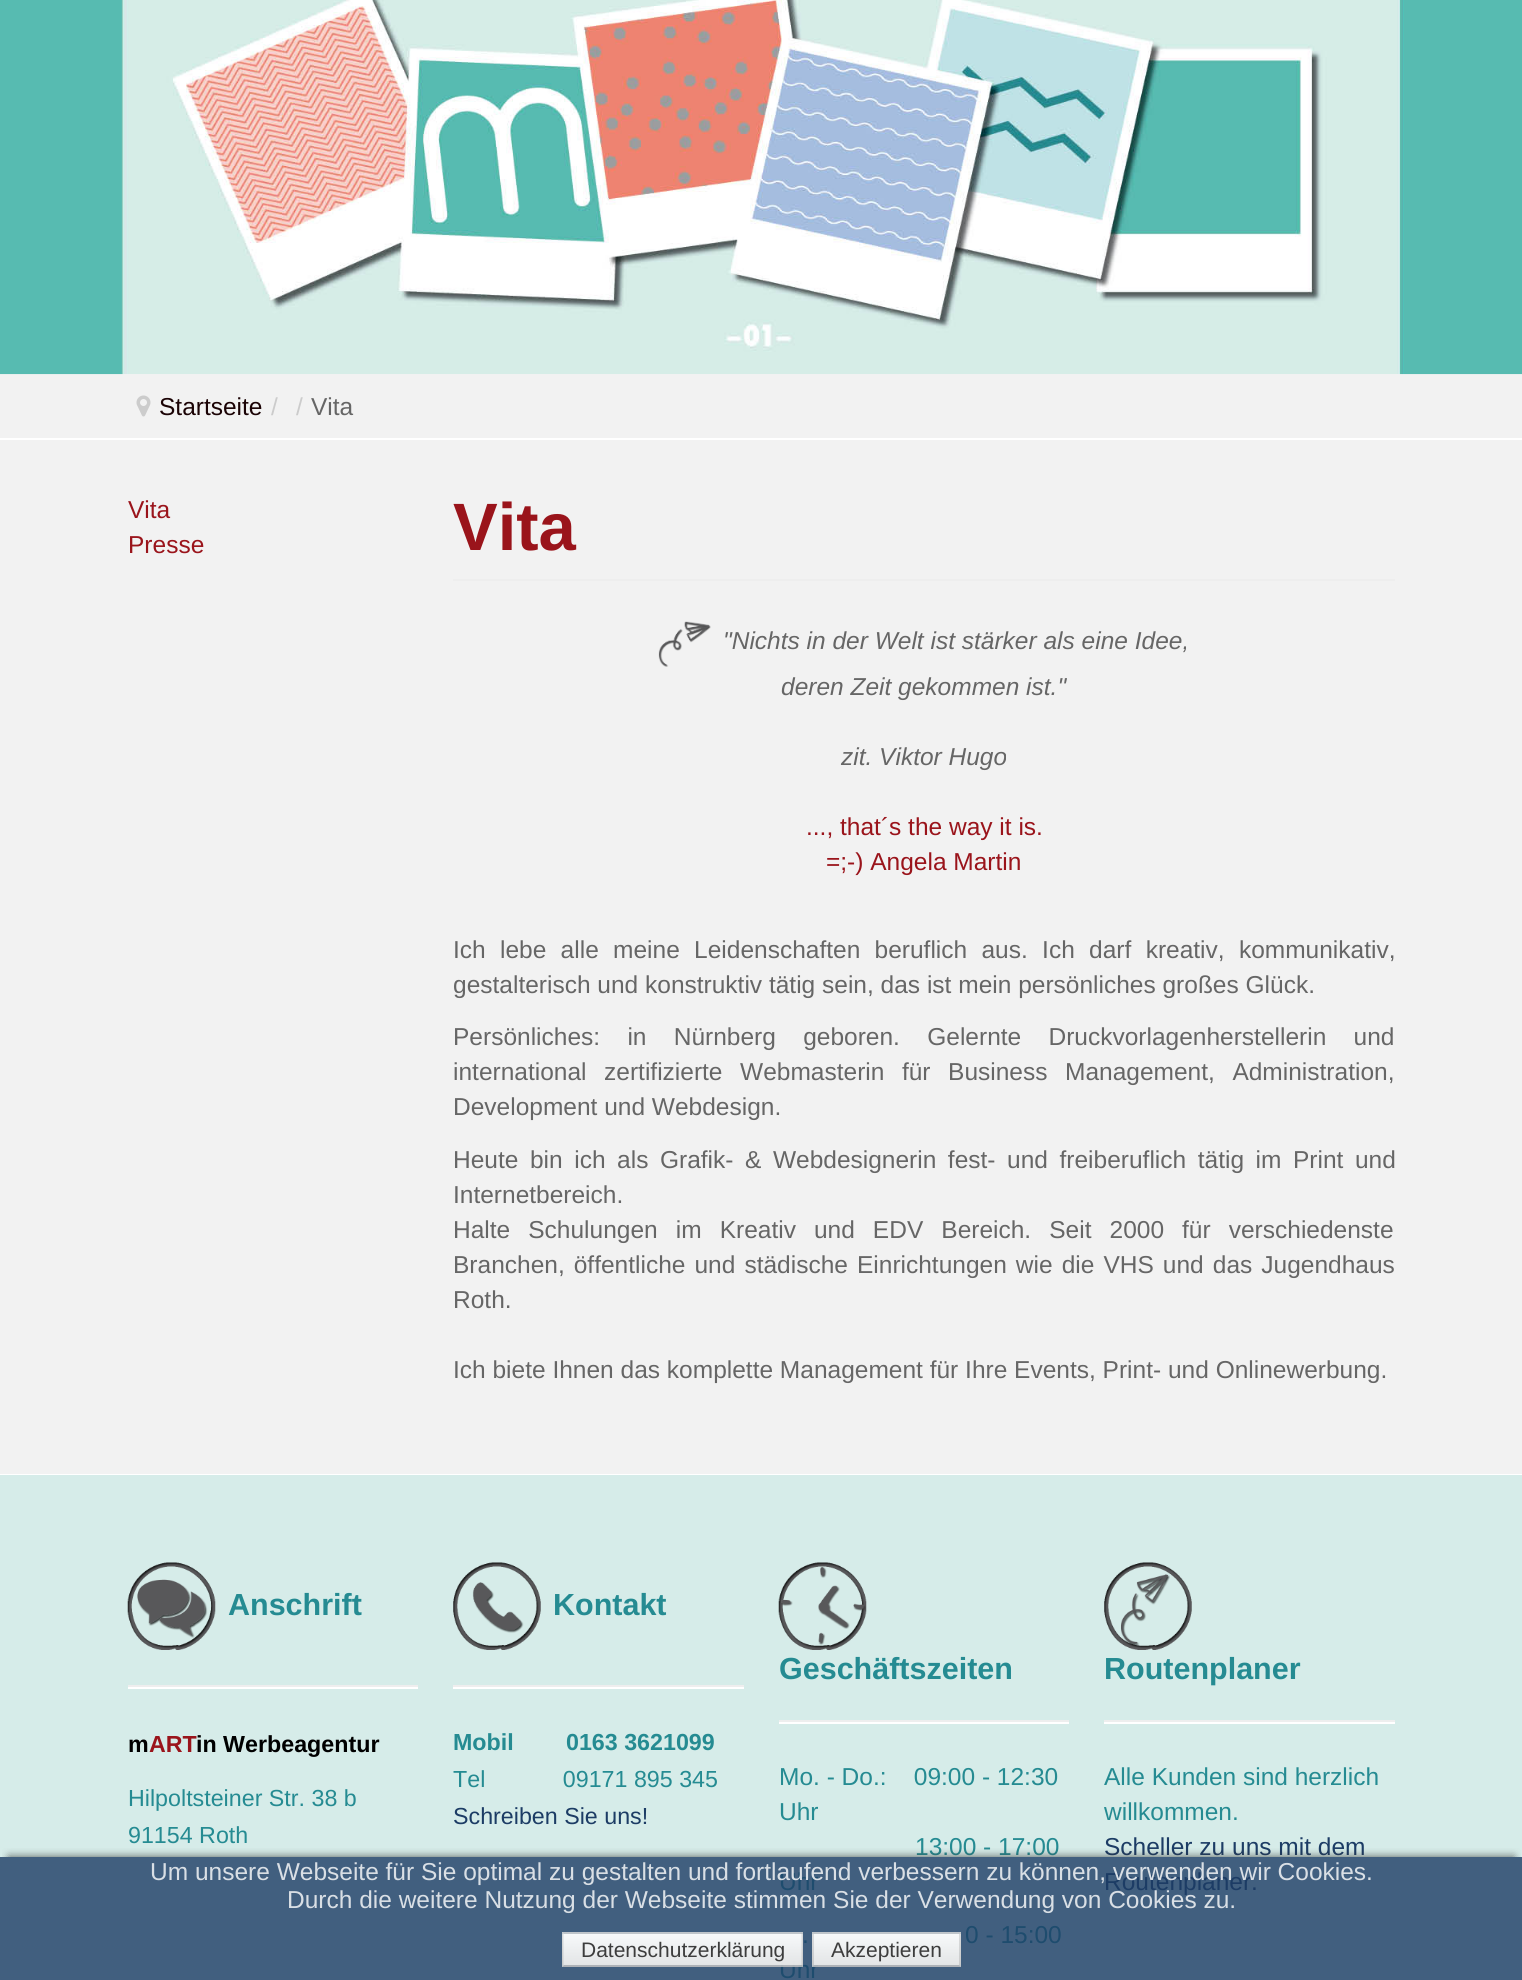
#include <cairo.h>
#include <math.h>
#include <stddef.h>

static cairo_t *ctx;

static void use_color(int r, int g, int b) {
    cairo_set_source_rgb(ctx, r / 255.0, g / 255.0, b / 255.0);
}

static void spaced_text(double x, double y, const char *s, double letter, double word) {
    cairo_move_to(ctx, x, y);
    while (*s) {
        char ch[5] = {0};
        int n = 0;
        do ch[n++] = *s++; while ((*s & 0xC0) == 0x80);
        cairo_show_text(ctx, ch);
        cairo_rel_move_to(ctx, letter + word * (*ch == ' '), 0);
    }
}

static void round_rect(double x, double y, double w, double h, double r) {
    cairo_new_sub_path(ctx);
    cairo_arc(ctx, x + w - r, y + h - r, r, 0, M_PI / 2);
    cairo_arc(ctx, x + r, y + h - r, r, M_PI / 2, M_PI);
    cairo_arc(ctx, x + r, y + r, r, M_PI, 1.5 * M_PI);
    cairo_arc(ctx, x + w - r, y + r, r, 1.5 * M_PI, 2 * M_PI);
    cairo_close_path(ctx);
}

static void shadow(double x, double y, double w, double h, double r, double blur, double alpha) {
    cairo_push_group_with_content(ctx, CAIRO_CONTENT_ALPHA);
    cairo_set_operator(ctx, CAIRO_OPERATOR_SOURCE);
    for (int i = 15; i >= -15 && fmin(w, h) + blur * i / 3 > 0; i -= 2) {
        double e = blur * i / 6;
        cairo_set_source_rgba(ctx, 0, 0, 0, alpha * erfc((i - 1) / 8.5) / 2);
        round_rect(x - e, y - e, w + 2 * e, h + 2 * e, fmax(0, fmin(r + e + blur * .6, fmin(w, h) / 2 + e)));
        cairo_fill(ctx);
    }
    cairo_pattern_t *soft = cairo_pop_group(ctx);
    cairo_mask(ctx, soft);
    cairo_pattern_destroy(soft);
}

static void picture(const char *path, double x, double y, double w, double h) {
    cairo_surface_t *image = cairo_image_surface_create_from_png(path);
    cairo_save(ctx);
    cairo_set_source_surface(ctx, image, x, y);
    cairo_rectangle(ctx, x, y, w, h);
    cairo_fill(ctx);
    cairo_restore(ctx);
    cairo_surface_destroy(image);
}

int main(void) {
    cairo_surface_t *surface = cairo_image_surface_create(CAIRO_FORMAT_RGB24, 1522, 1980);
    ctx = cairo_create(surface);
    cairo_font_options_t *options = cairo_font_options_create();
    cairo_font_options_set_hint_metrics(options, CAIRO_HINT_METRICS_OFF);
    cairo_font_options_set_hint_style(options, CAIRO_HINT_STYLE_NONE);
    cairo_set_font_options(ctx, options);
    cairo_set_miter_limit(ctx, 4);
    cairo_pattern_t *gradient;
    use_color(242, 242, 242);
    cairo_paint(ctx);
    picture("img1.png", 0, 0, 1522, 375);
    picture("img2.png", 136, 395, 15, 22);
    cairo_select_font_face(ctx, "Liberation Sans", CAIRO_FONT_SLANT_NORMAL, CAIRO_FONT_WEIGHT_NORMAL);
    cairo_set_font_size(ctx, 24.5);
    use_color(27, 3, 5);
    cairo_move_to(ctx, 159, 415);
    cairo_show_text(ctx, "Startseite");
    use_color(204, 204, 204);
    cairo_move_to(ctx, 271, 415);
    cairo_show_text(ctx, "/");
    cairo_move_to(ctx, 296, 415);
    cairo_show_text(ctx, "/");
    use_color(102, 102, 102);
    cairo_move_to(ctx, 311, 415);
    cairo_show_text(ctx, "Vita");
    use_color(255, 255, 255);
    cairo_rectangle(ctx, 0, 438, 1522, 2);
    cairo_fill(ctx);
    cairo_rectangle(ctx, 0, 1474, 1522, 1);
    cairo_fill(ctx);
    use_color(154, 20, 27);
    cairo_move_to(ctx, 128, 518);
    cairo_show_text(ctx, "Vita");
    cairo_move_to(ctx, 128, 553);
    cairo_show_text(ctx, "Presse");
    use_color(238, 238, 238);
    cairo_rectangle(ctx, 453, 579, 942, 2);
    cairo_fill(ctx);
    cairo_select_font_face(ctx, "Liberation Sans", CAIRO_FONT_SLANT_NORMAL, CAIRO_FONT_WEIGHT_BOLD);
    cairo_set_font_size(ctx, 67);
    use_color(154, 20, 27);
    cairo_move_to(ctx, 453, 550);
    cairo_show_text(ctx, "Vita");
    picture("img3.png", 658, 621, 53, 46);
    cairo_select_font_face(ctx, "Liberation Sans", CAIRO_FONT_SLANT_ITALIC, CAIRO_FONT_WEIGHT_NORMAL);
    cairo_set_font_size(ctx, 24.5);
    use_color(102, 102, 102);
    cairo_move_to(ctx, 723, 649);
    cairo_show_text(ctx, "\"Nichts in der Welt ist stärker als eine Idee,");
    cairo_move_to(ctx, 781, 695);
    cairo_show_text(ctx, "deren Zeit gekommen ist.\"");
    cairo_move_to(ctx, 841, 765);
    cairo_show_text(ctx, "zit. Viktor Hugo");
    cairo_select_font_face(ctx, "Liberation Sans", CAIRO_FONT_SLANT_NORMAL, CAIRO_FONT_WEIGHT_NORMAL);
    use_color(154, 20, 27);
    cairo_move_to(ctx, 806, 835);
    cairo_show_text(ctx, "..., that´s the way it is.");
    cairo_move_to(ctx, 826, 870);
    cairo_show_text(ctx, "=;-) Angela Martin");
    use_color(102, 102, 102);
    spaced_text(453, 958, "Ich lebe alle meine Leidenschaften beruflich aus. Ich darf kreativ, kommunikativ,", 0, 7.5);
    cairo_move_to(ctx, 453, 993);
    cairo_show_text(ctx, "gestalterisch und konstruktiv tätig sein, das ist mein persönliches großes Glück.");
    spaced_text(453, 1045, "Persönliches: in Nürnberg geboren. Gelernte Druckvorlagenherstellerin und", 0, 20.5);
    spaced_text(453, 1080, "international zertifizierte Webmasterin für Business Management, Administration,", 0, 10.75);
    cairo_move_to(ctx, 453, 1115);
    cairo_show_text(ctx, "Development und Webdesign.");
    spaced_text(453, 1168, "Heute bin ich als Grafik- & Webdesignerin fest- und freiberuflich tätig im Print und", 0, 4.75);
    cairo_move_to(ctx, 453, 1203);
    cairo_show_text(ctx, "Internetbereich.");
    spaced_text(453, 1238, "Halte Schulungen im Kreativ und EDV Bereich. Seit 2000 für verschiedenste", 0, 11.25);
    spaced_text(453, 1273, "Branchen, öffentliche und städische Einrichtungen wie die VHS und das Jugendhaus", 0, 2.25);
    cairo_move_to(ctx, 453, 1308);
    cairo_show_text(ctx, "Roth.");
    cairo_move_to(ctx, 453, 1378);
    cairo_show_text(ctx, "Ich biete Ihnen das komplette Management für Ihre Events, Print- und Onlinewerbung.");
    use_color(214, 236, 233);
    cairo_rectangle(ctx, 0, 1475, 1522, 382);
    cairo_fill(ctx);
    use_color(65, 95, 127);
    cairo_rectangle(ctx, 0, 1857, 1522, 123);
    cairo_fill(ctx);
    picture("img4.png", 127, 1562, 89, 88);
    cairo_select_font_face(ctx, "Liberation Sans", CAIRO_FONT_SLANT_NORMAL, CAIRO_FONT_WEIGHT_BOLD);
    cairo_set_font_size(ctx, 30.5);
    use_color(37, 139, 146);
    cairo_move_to(ctx, 228, 1615);
    cairo_show_text(ctx, "Anschrift");
    use_color(238, 238, 238);
    cairo_rectangle(ctx, 128, 1685, 290, 2);
    cairo_fill(ctx);
    use_color(255, 255, 255);
    cairo_rectangle(ctx, 128, 1687, 290, 2);
    cairo_fill(ctx);
    cairo_set_font_size(ctx, 23.25);
    use_color(0, 0, 0);
    cairo_move_to(ctx, 128, 1752);
    cairo_show_text(ctx, "m");
    use_color(154, 20, 27);
    cairo_move_to(ctx, 149, 1752);
    cairo_show_text(ctx, "ART");
    use_color(0, 0, 0);
    cairo_move_to(ctx, 196, 1752);
    cairo_show_text(ctx, "in Werbeagentur");
    cairo_select_font_face(ctx, "Liberation Sans", CAIRO_FONT_SLANT_NORMAL, CAIRO_FONT_WEIGHT_NORMAL);
    use_color(37, 139, 146);
    cairo_move_to(ctx, 128, 1806);
    cairo_show_text(ctx, "Hilpoltsteiner Str. 38 b");
    cairo_move_to(ctx, 128, 1843);
    cairo_show_text(ctx, "91154 Roth");
    picture("img5.png", 453, 1562, 88, 88);
    cairo_select_font_face(ctx, "Liberation Sans", CAIRO_FONT_SLANT_NORMAL, CAIRO_FONT_WEIGHT_BOLD);
    cairo_set_font_size(ctx, 30.5);
    cairo_move_to(ctx, 553, 1615);
    cairo_show_text(ctx, "Kontakt");
    use_color(238, 238, 238);
    cairo_rectangle(ctx, 453, 1685, 291, 2);
    cairo_fill(ctx);
    use_color(255, 255, 255);
    cairo_rectangle(ctx, 453, 1687, 291, 2);
    cairo_fill(ctx);
    cairo_set_font_size(ctx, 23.25);
    use_color(37, 139, 146);
    cairo_move_to(ctx, 453, 1750);
    cairo_show_text(ctx, "Mobil");
    cairo_move_to(ctx, 566, 1750);
    cairo_show_text(ctx, "0163 3621099");
    cairo_select_font_face(ctx, "Liberation Sans", CAIRO_FONT_SLANT_NORMAL, CAIRO_FONT_WEIGHT_NORMAL);
    cairo_move_to(ctx, 453, 1787);
    cairo_show_text(ctx, "Tel            09171 895 345");
    use_color(28, 60, 101);
    cairo_move_to(ctx, 453, 1824);
    cairo_show_text(ctx, "Schreiben Sie uns!");
    picture("img6.png", 778, 1562, 89, 88);
    cairo_select_font_face(ctx, "Liberation Sans", CAIRO_FONT_SLANT_NORMAL, CAIRO_FONT_WEIGHT_BOLD);
    cairo_set_font_size(ctx, 30.5);
    use_color(37, 139, 146);
    cairo_move_to(ctx, 779, 1679);
    cairo_show_text(ctx, "Geschäftszeiten");
    use_color(238, 238, 238);
    cairo_rectangle(ctx, 779, 1720, 290, 2);
    cairo_fill(ctx);
    use_color(255, 255, 255);
    cairo_rectangle(ctx, 779, 1722, 290, 2);
    cairo_fill(ctx);
    cairo_select_font_face(ctx, "Liberation Sans", CAIRO_FONT_SLANT_NORMAL, CAIRO_FONT_WEIGHT_NORMAL);
    cairo_set_font_size(ctx, 24.5);
    use_color(37, 139, 146);
    cairo_move_to(ctx, 779, 1785);
    cairo_show_text(ctx, "Mo. - Do.:    09:00 - 12:30");
    cairo_move_to(ctx, 779, 1820);
    cairo_show_text(ctx, "Uhr");
    cairo_move_to(ctx, 915, 1855);
    cairo_show_text(ctx, "13:00 - 17:00");
    use_color(30, 76, 110);
    cairo_move_to(ctx, 779, 1890);
    cairo_show_text(ctx, "Uhr");
    cairo_move_to(ctx, 802, 1943);
    cairo_show_text(ctx, ".");
    cairo_move_to(ctx, 965, 1943);
    cairo_show_text(ctx, "0 - 15:00");
    cairo_move_to(ctx, 779, 1978);
    cairo_show_text(ctx, "Uhr");
    picture("img7.png", 1104, 1562, 88, 88);
    cairo_select_font_face(ctx, "Liberation Sans", CAIRO_FONT_SLANT_NORMAL, CAIRO_FONT_WEIGHT_BOLD);
    cairo_set_font_size(ctx, 30.5);
    use_color(37, 139, 146);
    cairo_move_to(ctx, 1104, 1679);
    cairo_show_text(ctx, "Routenplaner");
    use_color(238, 238, 238);
    cairo_rectangle(ctx, 1104, 1720, 291, 2);
    cairo_fill(ctx);
    use_color(255, 255, 255);
    cairo_rectangle(ctx, 1104, 1722, 291, 2);
    cairo_fill(ctx);
    cairo_select_font_face(ctx, "Liberation Sans", CAIRO_FONT_SLANT_NORMAL, CAIRO_FONT_WEIGHT_NORMAL);
    cairo_set_font_size(ctx, 24.5);
    use_color(37, 139, 146);
    cairo_move_to(ctx, 1104, 1785);
    cairo_show_text(ctx, "Alle Kunden sind herzlich");
    cairo_move_to(ctx, 1104, 1820);
    cairo_show_text(ctx, "willkommen.");
    use_color(28, 60, 101);
    cairo_move_to(ctx, 1104, 1855);
    cairo_show_text(ctx, "Scheller zu uns mit dem");
    cairo_move_to(ctx, 1104, 1890);
    cairo_show_text(ctx, "Routenplaner.");
    cairo_save(ctx);
    cairo_rectangle(ctx, 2, 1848, 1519, 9);
    cairo_clip(ctx);
    use_color(51, 51, 51);
    shadow(9, 1857, 1505, 107, 0, 4.5, 0.8);
    cairo_restore(ctx);
    use_color(217, 223, 229);
    cairo_move_to(ctx, 150, 1880);
    cairo_show_text(ctx, "Um unsere Webseite für Sie optimal zu gestalten und fortlaufend verbessern zu können, verwenden wir Cookies.");
    cairo_move_to(ctx, 287, 1908);
    cairo_show_text(ctx, "Durch die weitere Nutzung der Webseite stimmen Sie der Verwendung von Cookies zu.");
    cairo_set_source_rgba(ctx, 1, 1, 1, 0.8);
    cairo_rectangle(ctx, 562, 1932, 241, 35);
    cairo_fill(ctx);
    gradient = cairo_pattern_create_linear(683, 1934, 683, 1965);
    cairo_pattern_add_color_stop_rgba(gradient, 0, 1, 1, 1, 0.8);
    cairo_pattern_add_color_stop_rgba(gradient, 1, 0.902, 0.902, 0.902, 0.8);
    cairo_set_source(ctx, gradient);
    cairo_pattern_destroy(gradient);
    cairo_rectangle(ctx, 562, 1934, 241, 31);
    cairo_fill(ctx);
    cairo_set_source_rgba(ctx, 0, 0, 0, 0.12);
    cairo_new_path(ctx);
    cairo_move_to(ctx, 562, 1932);
    cairo_line_to(ctx, 803, 1932);
    cairo_line_to(ctx, 802, 1934);
    cairo_line_to(ctx, 564, 1934);
    cairo_close_path(ctx);
    cairo_fill(ctx);
    cairo_new_path(ctx);
    cairo_move_to(ctx, 803, 1932);
    cairo_line_to(ctx, 803, 1967);
    cairo_line_to(ctx, 801.5, 1965);
    cairo_line_to(ctx, 801.5, 1934);
    cairo_close_path(ctx);
    cairo_fill(ctx);
    cairo_set_source_rgba(ctx, 0, 0, 0, 0.2);
    cairo_new_path(ctx);
    cairo_move_to(ctx, 803, 1967);
    cairo_line_to(ctx, 562, 1967);
    cairo_line_to(ctx, 564, 1965);
    cairo_line_to(ctx, 802, 1965);
    cairo_close_path(ctx);
    cairo_fill(ctx);
    cairo_set_source_rgba(ctx, 0.169, 0.184, 0.184, 0.15);
    cairo_new_path(ctx);
    cairo_move_to(ctx, 562, 1967);
    cairo_line_to(ctx, 562, 1932);
    cairo_line_to(ctx, 563.5, 1934);
    cairo_line_to(ctx, 563.5, 1965);
    cairo_close_path(ctx);
    cairo_fill(ctx);
    cairo_set_font_size(ctx, 21);
    use_color(61, 61, 61);
    cairo_move_to(ctx, 581, 1957);
    cairo_show_text(ctx, "Datenschutzerklärung");
    cairo_set_source_rgba(ctx, 1, 1, 1, 0.8);
    cairo_rectangle(ctx, 812, 1932, 149, 35);
    cairo_fill(ctx);
    gradient = cairo_pattern_create_linear(886, 1934, 886, 1965);
    cairo_pattern_add_color_stop_rgba(gradient, 0, 1, 1, 1, 0.8);
    cairo_pattern_add_color_stop_rgba(gradient, 1, 0.902, 0.902, 0.902, 0.8);
    cairo_set_source(ctx, gradient);
    cairo_pattern_destroy(gradient);
    cairo_rectangle(ctx, 812, 1934, 149, 31);
    cairo_fill(ctx);
    cairo_set_source_rgba(ctx, 0, 0, 0, 0.12);
    cairo_new_path(ctx);
    cairo_move_to(ctx, 812, 1932);
    cairo_line_to(ctx, 961, 1932);
    cairo_line_to(ctx, 959, 1934);
    cairo_line_to(ctx, 814, 1934);
    cairo_close_path(ctx);
    cairo_fill(ctx);
    cairo_new_path(ctx);
    cairo_move_to(ctx, 961, 1932);
    cairo_line_to(ctx, 961, 1967);
    cairo_line_to(ctx, 959, 1965);
    cairo_line_to(ctx, 959, 1934);
    cairo_close_path(ctx);
    cairo_fill(ctx);
    cairo_set_source_rgba(ctx, 0, 0, 0, 0.2);
    cairo_new_path(ctx);
    cairo_move_to(ctx, 961, 1967);
    cairo_line_to(ctx, 812, 1967);
    cairo_line_to(ctx, 814, 1965);
    cairo_line_to(ctx, 959, 1965);
    cairo_close_path(ctx);
    cairo_fill(ctx);
    cairo_set_source_rgba(ctx, 0, 0, 0, 0.12);
    cairo_new_path(ctx);
    cairo_move_to(ctx, 812, 1967);
    cairo_line_to(ctx, 812, 1932);
    cairo_line_to(ctx, 814, 1934);
    cairo_line_to(ctx, 814, 1965);
    cairo_close_path(ctx);
    cairo_fill(ctx);
    use_color(61, 61, 61);
    cairo_move_to(ctx, 831, 1957);
    cairo_show_text(ctx, "Akzeptieren");
    cairo_surface_write_to_png(surface, "result.png");
    cairo_font_options_destroy(options);
    cairo_destroy(ctx);
    cairo_surface_destroy(surface);
    return 0;
}
